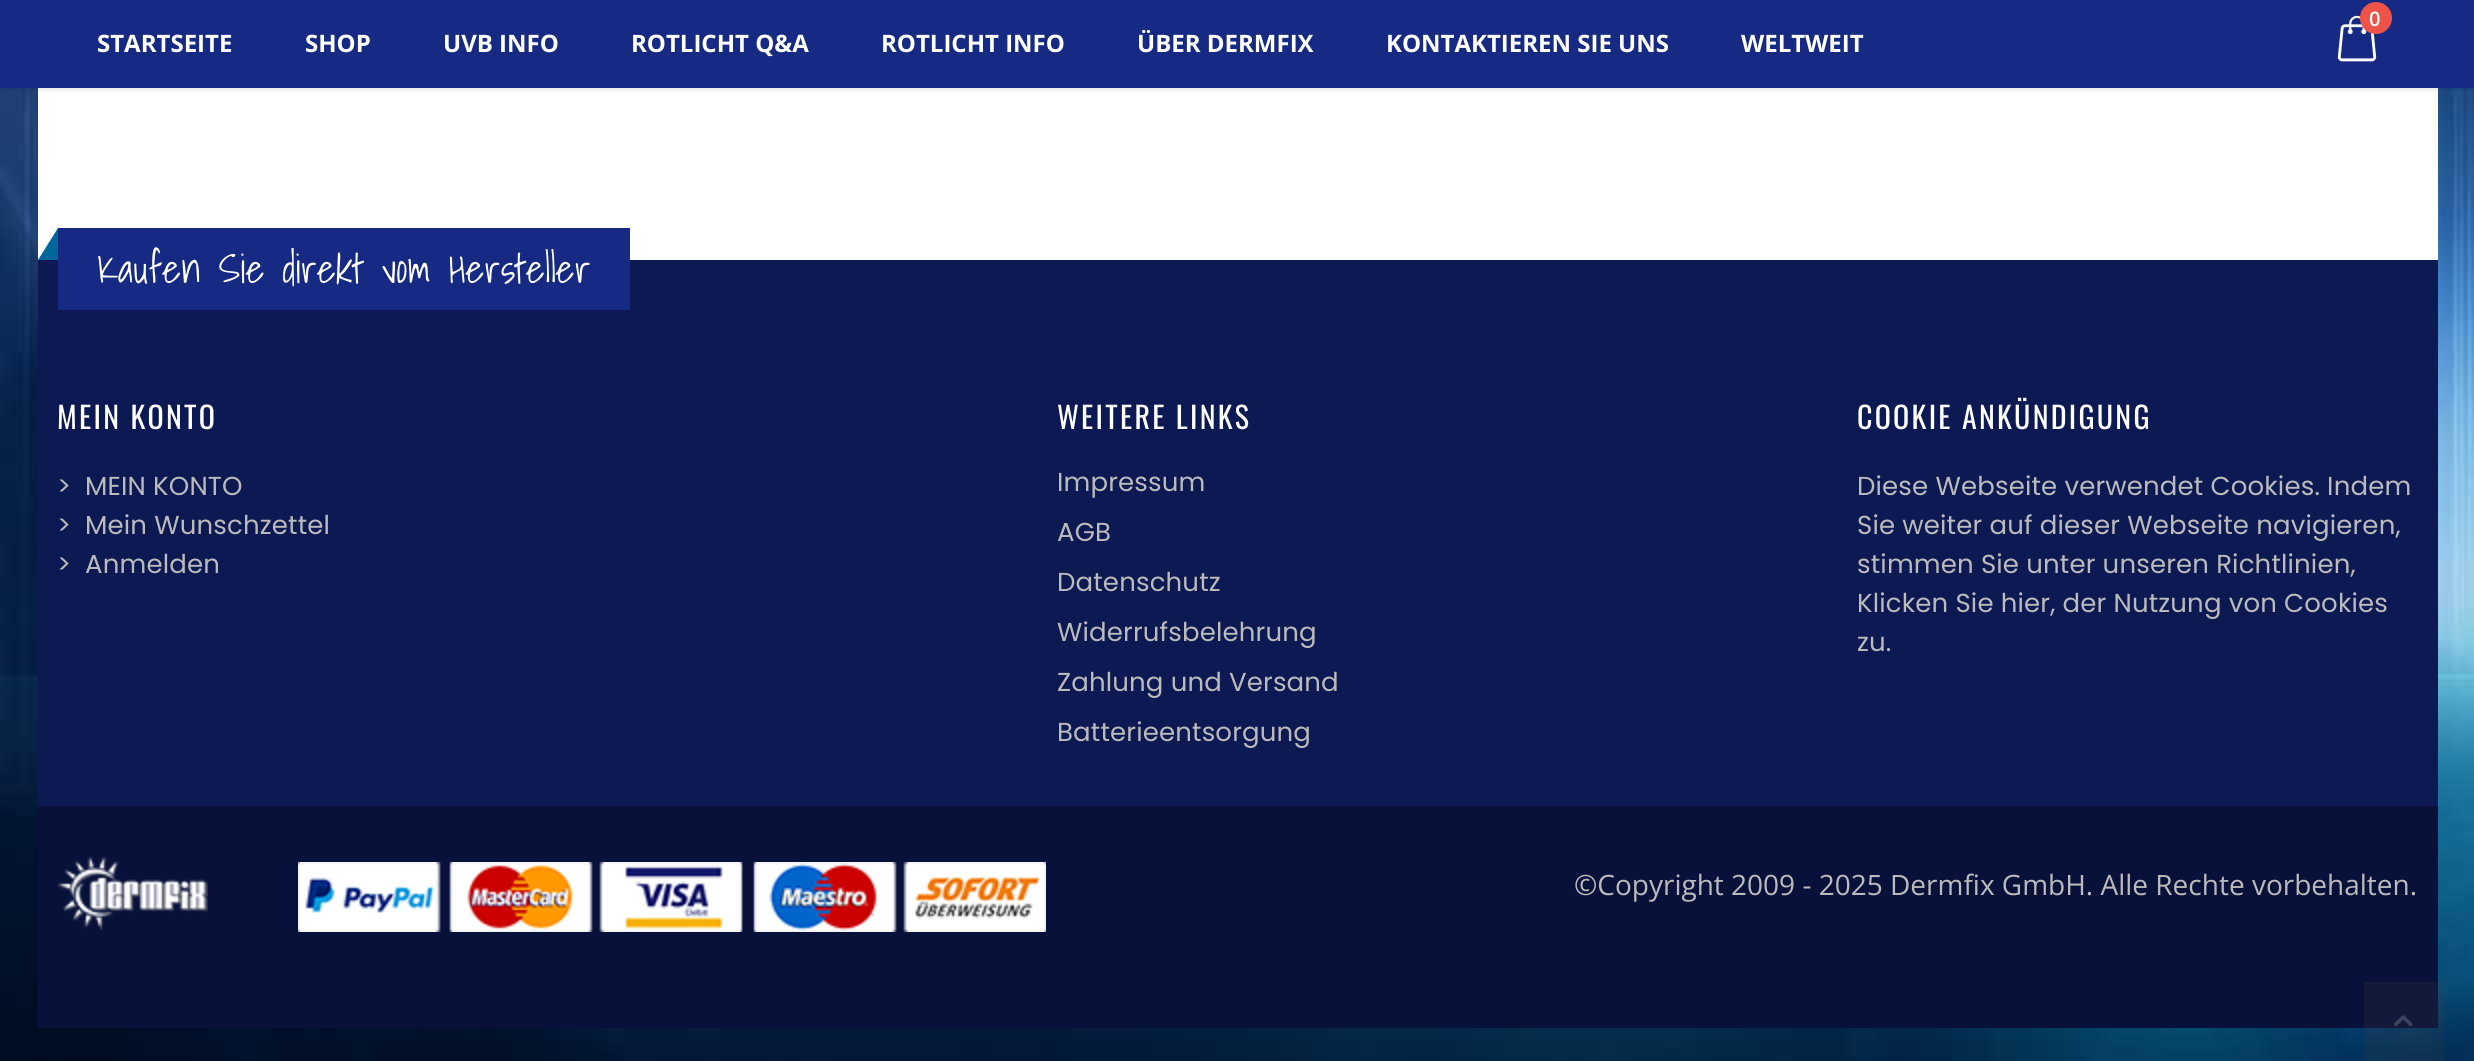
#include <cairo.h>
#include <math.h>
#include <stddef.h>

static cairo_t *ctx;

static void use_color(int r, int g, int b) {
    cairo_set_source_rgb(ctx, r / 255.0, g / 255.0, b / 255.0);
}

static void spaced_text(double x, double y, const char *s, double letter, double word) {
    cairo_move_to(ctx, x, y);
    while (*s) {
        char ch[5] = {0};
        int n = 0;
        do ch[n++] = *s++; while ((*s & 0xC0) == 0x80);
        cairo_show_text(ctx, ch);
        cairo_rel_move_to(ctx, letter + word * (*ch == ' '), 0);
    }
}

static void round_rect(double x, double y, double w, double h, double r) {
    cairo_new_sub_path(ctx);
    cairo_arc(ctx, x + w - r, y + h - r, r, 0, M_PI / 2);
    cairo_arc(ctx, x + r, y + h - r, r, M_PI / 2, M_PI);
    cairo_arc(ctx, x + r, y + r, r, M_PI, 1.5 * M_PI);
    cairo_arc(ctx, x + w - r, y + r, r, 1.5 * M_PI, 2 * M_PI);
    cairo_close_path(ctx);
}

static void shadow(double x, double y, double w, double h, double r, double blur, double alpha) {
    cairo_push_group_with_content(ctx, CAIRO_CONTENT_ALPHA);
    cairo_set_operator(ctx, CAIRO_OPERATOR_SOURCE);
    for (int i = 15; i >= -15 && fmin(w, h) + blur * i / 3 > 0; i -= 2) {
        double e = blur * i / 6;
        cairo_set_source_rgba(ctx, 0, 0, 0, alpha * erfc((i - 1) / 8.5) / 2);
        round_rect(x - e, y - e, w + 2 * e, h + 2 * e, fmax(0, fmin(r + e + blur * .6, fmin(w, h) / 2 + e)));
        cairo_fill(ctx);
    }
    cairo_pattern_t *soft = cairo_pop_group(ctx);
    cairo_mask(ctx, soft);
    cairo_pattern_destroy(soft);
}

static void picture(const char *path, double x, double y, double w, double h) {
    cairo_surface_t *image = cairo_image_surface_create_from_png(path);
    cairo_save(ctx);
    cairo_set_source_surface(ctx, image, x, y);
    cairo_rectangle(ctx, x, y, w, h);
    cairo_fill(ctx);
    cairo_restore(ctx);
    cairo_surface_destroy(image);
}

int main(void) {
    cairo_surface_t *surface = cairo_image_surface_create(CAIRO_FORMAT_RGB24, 2474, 1061);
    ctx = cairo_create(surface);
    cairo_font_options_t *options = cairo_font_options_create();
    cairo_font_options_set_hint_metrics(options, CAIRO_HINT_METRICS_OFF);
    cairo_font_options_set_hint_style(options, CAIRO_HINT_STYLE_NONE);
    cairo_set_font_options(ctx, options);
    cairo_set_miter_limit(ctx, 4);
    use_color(255, 255, 255);
    cairo_paint(ctx);
    picture("img1.png", 0, 88, 2474, 973);
    use_color(255, 255, 255);
    cairo_rectangle(ctx, 38, 88, 2400, 172);
    cairo_fill(ctx);
    use_color(0, 0, 0);
    shadow(0, 2, 2474, 88, 0, 2, 0.1);
    use_color(22, 42, 131);
    cairo_rectangle(ctx, 0, 0, 2474, 88);
    cairo_fill(ctx);
    picture("img2.png", 2337, 15, 40, 47);
    use_color(237, 83, 72);
    cairo_arc(ctx, 2376, 18, 16, 0, 2 * M_PI);
    cairo_fill(ctx);
    cairo_select_font_face(ctx, "Open Sans SemiBold", CAIRO_FONT_SLANT_NORMAL, CAIRO_FONT_WEIGHT_NORMAL);
    cairo_set_font_size(ctx, 20);
    use_color(255, 255, 255);
    cairo_move_to(ctx, 2369, 26);
    cairo_show_text(ctx, "0");
    cairo_select_font_face(ctx, "Open Sans", CAIRO_FONT_SLANT_NORMAL, CAIRO_FONT_WEIGHT_BOLD);
    cairo_set_font_size(ctx, 24);
    cairo_move_to(ctx, 97, 52);
    cairo_show_text(ctx, "STARTSEITE");
    cairo_move_to(ctx, 305, 52);
    cairo_show_text(ctx, "SHOP");
    cairo_move_to(ctx, 443, 52);
    cairo_show_text(ctx, "UVB INFO");
    cairo_move_to(ctx, 631, 52);
    cairo_show_text(ctx, "ROTLICHT Q&A");
    cairo_move_to(ctx, 881, 52);
    cairo_show_text(ctx, "ROTLICHT INFO");
    cairo_move_to(ctx, 1137, 52);
    cairo_show_text(ctx, "ÜBER DERMFIX");
    cairo_move_to(ctx, 1386, 52);
    cairo_show_text(ctx, "KONTAKTIEREN SIE UNS");
    cairo_move_to(ctx, 1741, 52);
    cairo_show_text(ctx, "WELTWEIT");
    use_color(12, 25, 82);
    cairo_rectangle(ctx, 38, 260, 2400, 546);
    cairo_fill(ctx);
    use_color(22, 42, 131);
    cairo_rectangle(ctx, 58, 228, 572, 82);
    cairo_fill(ctx);
    use_color(0, 102, 153);
    cairo_new_path(ctx);
    cairo_move_to(ctx, 58, 228);
    cairo_line_to(ctx, 58, 260);
    cairo_line_to(ctx, 38, 260);
    cairo_close_path(ctx);
    cairo_fill(ctx);
    cairo_select_font_face(ctx, "Shadows Into Light Light", CAIRO_FONT_SLANT_NORMAL, CAIRO_FONT_WEIGHT_NORMAL);
    cairo_set_font_size(ctx, 40);
    use_color(255, 255, 255);
    spaced_text(97, 283, "Kaufen Sie direkt vom Hersteller", 0.15, 0);
    cairo_select_font_face(ctx, "Oswald", CAIRO_FONT_SLANT_NORMAL, CAIRO_FONT_WEIGHT_NORMAL);
    cairo_set_font_size(ctx, 30);
    spaced_text(57, 429, "MEIN KONTO", 2.25, 0);
    cairo_select_font_face(ctx, "Poppins", CAIRO_FONT_SLANT_NORMAL, CAIRO_FONT_WEIGHT_NORMAL);
    cairo_set_font_size(ctx, 26);
    use_color(187, 187, 187);
    spaced_text(57, 495, ">", 0.15, 0);
    spaced_text(85, 495, "MEIN KONTO", 0.15, 0);
    spaced_text(57, 534, ">", 0.15, 0);
    spaced_text(85, 534, "Mein Wunschzettel", 0.15, 0);
    spaced_text(57, 573, ">", 0.15, 0);
    spaced_text(85, 573, "Anmelden", 0.15, 0);
    cairo_select_font_face(ctx, "Oswald", CAIRO_FONT_SLANT_NORMAL, CAIRO_FONT_WEIGHT_NORMAL);
    cairo_set_font_size(ctx, 30);
    use_color(255, 255, 255);
    spaced_text(1057, 429, "WEITERE LINKS", 2.25, 0);
    cairo_select_font_face(ctx, "Poppins", CAIRO_FONT_SLANT_NORMAL, CAIRO_FONT_WEIGHT_NORMAL);
    cairo_set_font_size(ctx, 26);
    use_color(187, 187, 187);
    spaced_text(1057, 491, "Impressum", 0.15, 0);
    spaced_text(1057, 541, "AGB", 0.15, 0);
    spaced_text(1057, 591, "Datenschutz", 0.15, 0);
    spaced_text(1057, 641, "Widerrufsbelehrung", 0.15, 0);
    spaced_text(1057, 691, "Zahlung und Versand", 0.15, 0);
    spaced_text(1057, 741, "Batterieentsorgung", 0.15, 0);
    cairo_select_font_face(ctx, "Oswald", CAIRO_FONT_SLANT_NORMAL, CAIRO_FONT_WEIGHT_NORMAL);
    cairo_set_font_size(ctx, 30);
    use_color(255, 255, 255);
    spaced_text(1857, 429, "COOKIE ANKÜNDIGUNG", 2.25, 0);
    cairo_select_font_face(ctx, "Poppins", CAIRO_FONT_SLANT_NORMAL, CAIRO_FONT_WEIGHT_NORMAL);
    cairo_set_font_size(ctx, 26);
    use_color(187, 187, 187);
    spaced_text(1857, 495, "Diese Webseite verwendet Cookies. Indem", 0.15, 0);
    spaced_text(1857, 534, "Sie weiter auf dieser Webseite navigieren,", 0.15, 0);
    spaced_text(1857, 573, "stimmen Sie unter unseren Richtlinien,", 0.15, 0);
    spaced_text(1857, 612, "Klicken Sie hier, der Nutzung von Cookies", 0.15, 0);
    spaced_text(1857, 651, "zu.", 0.15, 0);
    use_color(8, 17, 58);
    cairo_rectangle(ctx, 38, 806, 2400, 222);
    cairo_fill(ctx);
    picture("img3.png", 58, 856, 150, 74);
    picture("img4.png", 298, 862, 748, 70);
    cairo_select_font_face(ctx, "Open Sans", CAIRO_FONT_SLANT_NORMAL, CAIRO_FONT_WEIGHT_NORMAL);
    cairo_set_font_size(ctx, 28);
    use_color(187, 187, 187);
    cairo_move_to(ctx, 1574, 895);
    cairo_show_text(ctx, "©Copyright 2009 - 2025 Dermfix GmbH. Alle Rechte vorbehalten.");
    cairo_set_source_rgba(ctx, 0.251, 0.251, 0.251, 0.18);
    cairo_rectangle(ctx, 2364, 982, 80, 79);
    cairo_fill(ctx);
    picture("img5.png", 2394, 1015, 19, 12);
    cairo_surface_write_to_png(surface, "result.png");
    cairo_font_options_destroy(options);
    cairo_destroy(ctx);
    cairo_surface_destroy(surface);
    return 0;
}
